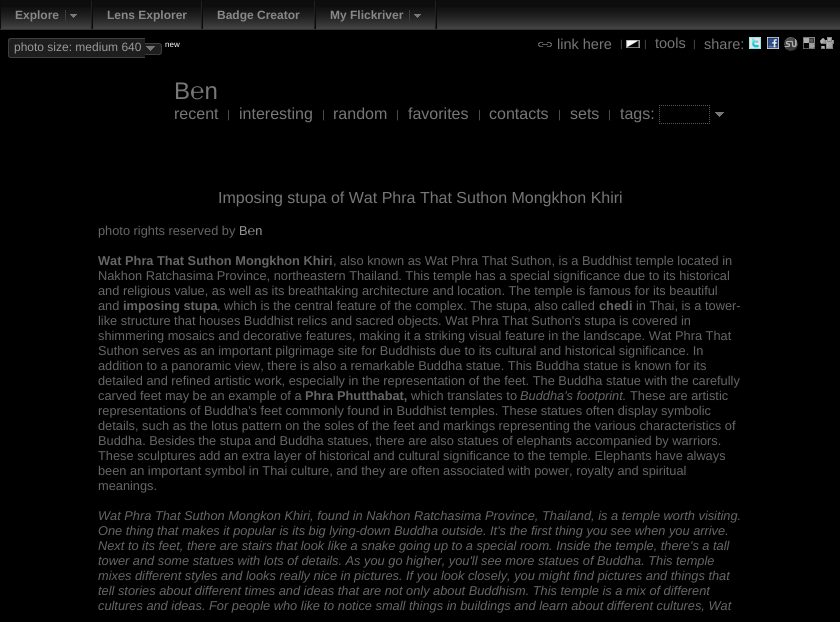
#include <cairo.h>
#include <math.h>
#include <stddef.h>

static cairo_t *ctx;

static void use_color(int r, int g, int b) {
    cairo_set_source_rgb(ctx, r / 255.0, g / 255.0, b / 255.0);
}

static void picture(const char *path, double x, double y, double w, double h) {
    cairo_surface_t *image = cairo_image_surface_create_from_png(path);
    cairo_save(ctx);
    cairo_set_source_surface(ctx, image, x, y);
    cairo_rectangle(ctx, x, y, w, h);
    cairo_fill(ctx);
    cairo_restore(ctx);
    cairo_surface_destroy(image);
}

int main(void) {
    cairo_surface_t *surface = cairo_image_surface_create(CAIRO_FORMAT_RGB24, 840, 622);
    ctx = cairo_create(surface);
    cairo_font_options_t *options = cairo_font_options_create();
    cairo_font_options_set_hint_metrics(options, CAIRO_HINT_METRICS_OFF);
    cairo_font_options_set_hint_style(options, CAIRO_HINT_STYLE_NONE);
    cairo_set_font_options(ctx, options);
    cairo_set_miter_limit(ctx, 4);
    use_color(0, 0, 0);
    cairo_paint(ctx);
    use_color(13, 13, 13);
    cairo_rectangle(ctx, 0, 0, 840, 1);
    cairo_fill(ctx);
    cairo_rectangle(ctx, 1, 1, 839, 6);
    cairo_fill(ctx);
    picture("img1.png", 1, 7, 839, 22);
    use_color(51, 51, 51);
    cairo_rectangle(ctx, 0, 29, 840, 1);
    cairo_fill(ctx);
    use_color(11, 11, 11);
    cairo_rectangle(ctx, 436, 1, 1, 28);
    cairo_fill(ctx);
    use_color(33, 33, 33);
    cairo_rectangle(ctx, 91, 1, 1, 28);
    cairo_fill(ctx);
    use_color(11, 11, 11);
    cairo_rectangle(ctx, 0, 1, 1, 28);
    cairo_fill(ctx);
    cairo_select_font_face(ctx, "Liberation Sans", CAIRO_FONT_SLANT_NORMAL, CAIRO_FONT_WEIGHT_BOLD);
    cairo_set_font_size(ctx, 12);
    use_color(136, 136, 136);
    cairo_move_to(ctx, 15, 19);
    cairo_show_text(ctx, "Explore");
    picture("img2.png", 65, 10, 12, 12);
    use_color(33, 33, 33);
    cairo_rectangle(ctx, 201, 1, 1, 28);
    cairo_fill(ctx);
    use_color(11, 11, 11);
    cairo_rectangle(ctx, 92, 1, 1, 28);
    cairo_fill(ctx);
    use_color(136, 136, 136);
    cairo_move_to(ctx, 107, 19);
    cairo_show_text(ctx, "Lens Explorer");
    use_color(33, 33, 33);
    cairo_rectangle(ctx, 314, 1, 1, 28);
    cairo_fill(ctx);
    use_color(11, 11, 11);
    cairo_rectangle(ctx, 202, 1, 1, 28);
    cairo_fill(ctx);
    use_color(136, 136, 136);
    cairo_move_to(ctx, 217, 19);
    cairo_show_text(ctx, "Badge Creator");
    use_color(33, 33, 33);
    cairo_rectangle(ctx, 435, 1, 1, 28);
    cairo_fill(ctx);
    use_color(11, 11, 11);
    cairo_rectangle(ctx, 315, 1, 1, 28);
    cairo_fill(ctx);
    use_color(136, 136, 136);
    cairo_move_to(ctx, 330, 19);
    cairo_show_text(ctx, "My Flickriver");
    picture("img2.png", 409, 10, 12, 12);
    use_color(30, 30, 30);
    cairo_new_path(ctx);
    cairo_move_to(ctx, 11, 38);
    cairo_line_to(ctx, 141, 38);
    cairo_line_to(ctx, 141, 58);
    cairo_line_to(ctx, 11, 58);
    cairo_curve_to(ctx, 9.5, 58, 8, 56.5, 8, 55);
    cairo_line_to(ctx, 8, 41);
    cairo_curve_to(ctx, 8, 39.5, 9.5, 38, 11, 38);
    cairo_close_path(ctx);
    cairo_fill(ctx);
    use_color(63, 63, 63);
    cairo_set_fill_rule(ctx, CAIRO_FILL_RULE_EVEN_ODD);
    cairo_new_path(ctx);
    cairo_move_to(ctx, 11, 38);
    cairo_line_to(ctx, 141, 38);
    cairo_line_to(ctx, 141, 58);
    cairo_line_to(ctx, 11, 58);
    cairo_curve_to(ctx, 9, 58, 8, 57, 8, 55);
    cairo_line_to(ctx, 8, 41);
    cairo_curve_to(ctx, 8, 39, 9, 38, 11, 38);
    cairo_close_path(ctx);
    cairo_move_to(ctx, 11, 39);
    cairo_line_to(ctx, 141, 39);
    cairo_line_to(ctx, 141, 57);
    cairo_line_to(ctx, 10, 57);
    cairo_line_to(ctx, 9, 56);
    cairo_line_to(ctx, 9, 48);
    cairo_curve_to(ctx, 9, 46, 8, 39, 11, 39);
    cairo_close_path(ctx);
    cairo_fill(ctx);
    cairo_select_font_face(ctx, "Liberation Sans", CAIRO_FONT_SLANT_NORMAL, CAIRO_FONT_WEIGHT_NORMAL);
    use_color(153, 153, 153);
    cairo_move_to(ctx, 14, 51);
    cairo_show_text(ctx, "photo size: medium 640");
    use_color(30, 30, 30);
    cairo_rectangle(ctx, 141, 38, 4, 20);
    cairo_fill(ctx);
    use_color(63, 63, 63);
    cairo_rectangle(ctx, 141, 38, 4, 1);
    cairo_fill(ctx);
    cairo_rectangle(ctx, 141, 57, 4, 1);
    cairo_fill(ctx);
    use_color(30, 30, 30);
    cairo_new_path(ctx);
    cairo_move_to(ctx, 145, 43);
    cairo_line_to(ctx, 159, 43);
    cairo_curve_to(ctx, 160.5, 43, 162, 44.5, 162, 46);
    cairo_line_to(ctx, 162, 52);
    cairo_curve_to(ctx, 162, 53.5, 160.5, 55, 159, 55);
    cairo_line_to(ctx, 145, 55);
    cairo_close_path(ctx);
    cairo_fill(ctx);
    use_color(63, 63, 63);
    cairo_new_path(ctx);
    cairo_move_to(ctx, 145, 43);
    cairo_line_to(ctx, 154.5, 43);
    cairo_curve_to(ctx, 161, 43, 162, 42.5, 162, 49);
    cairo_curve_to(ctx, 162, 55.5, 161, 55, 154.5, 55);
    cairo_line_to(ctx, 145, 55);
    cairo_close_path(ctx);
    cairo_move_to(ctx, 145, 44);
    cairo_line_to(ctx, 154.5, 44);
    cairo_curve_to(ctx, 160.5, 44, 161, 43, 161, 49);
    cairo_curve_to(ctx, 161, 55, 160.5, 54, 154.5, 54);
    cairo_line_to(ctx, 145, 54);
    cairo_close_path(ctx);
    cairo_fill(ctx);
    cairo_set_font_size(ctx, 8);
    use_color(255, 255, 255);
    cairo_move_to(ctx, 165, 47);
    cairo_show_text(ctx, "new");
    picture("img3.png", 146, 46, 9, 5);
    picture("img4.png", 538, 42, 14, 5);
    cairo_set_font_size(ctx, 14.5);
    use_color(119, 119, 119);
    cairo_move_to(ctx, 557, 49);
    cairo_show_text(ctx, "link here");
    cairo_set_font_size(ctx, 10);
    use_color(85, 85, 85);
    cairo_move_to(ctx, 620, 47);
    cairo_show_text(ctx, "|");
    picture("img5.png", 626, 40, 14, 8);
    cairo_move_to(ctx, 644, 47);
    cairo_show_text(ctx, "|");
    cairo_set_font_size(ctx, 14.5);
    use_color(119, 119, 119);
    cairo_move_to(ctx, 655, 48);
    cairo_show_text(ctx, "tools");
    cairo_set_font_size(ctx, 10);
    use_color(85, 85, 85);
    cairo_move_to(ctx, 693, 47);
    cairo_show_text(ctx, "|");
    cairo_set_font_size(ctx, 14.5);
    use_color(119, 119, 119);
    cairo_move_to(ctx, 704, 49);
    cairo_show_text(ctx, "share:");
    picture("img6.png", 749, 37, 12, 12);
    picture("img7.png", 767, 37, 12, 12);
    picture("img8.png", 784, 37, 14, 14);
    picture("img9.png", 803, 37, 12, 12);
    picture("img10.png", 820, 37, 14, 12);
    cairo_set_font_size(ctx, 24);
    cairo_move_to(ctx, 174, 99);
    cairo_show_text(ctx, "B℮n");
    cairo_set_font_size(ctx, 16);
    cairo_move_to(ctx, 174, 119);
    cairo_show_text(ctx, "recent");
    cairo_set_font_size(ctx, 11);
    use_color(85, 85, 85);
    cairo_move_to(ctx, 227, 118);
    cairo_show_text(ctx, "|");
    cairo_set_font_size(ctx, 16);
    use_color(119, 119, 119);
    cairo_move_to(ctx, 239, 119);
    cairo_show_text(ctx, "interesting");
    cairo_set_font_size(ctx, 11);
    use_color(85, 85, 85);
    cairo_move_to(ctx, 322, 118);
    cairo_show_text(ctx, "|");
    cairo_set_font_size(ctx, 16);
    use_color(119, 119, 119);
    cairo_move_to(ctx, 333, 119);
    cairo_show_text(ctx, "random");
    cairo_set_font_size(ctx, 11);
    use_color(85, 85, 85);
    cairo_move_to(ctx, 396, 118);
    cairo_show_text(ctx, "|");
    cairo_set_font_size(ctx, 16);
    use_color(119, 119, 119);
    cairo_move_to(ctx, 408, 119);
    cairo_show_text(ctx, "favorites");
    cairo_set_font_size(ctx, 11);
    use_color(85, 85, 85);
    cairo_move_to(ctx, 478, 118);
    cairo_show_text(ctx, "|");
    cairo_set_font_size(ctx, 16);
    use_color(119, 119, 119);
    cairo_move_to(ctx, 489, 119);
    cairo_show_text(ctx, "contacts");
    cairo_set_font_size(ctx, 11);
    use_color(85, 85, 85);
    cairo_move_to(ctx, 558, 118);
    cairo_show_text(ctx, "|");
    cairo_set_font_size(ctx, 16);
    use_color(119, 119, 119);
    cairo_move_to(ctx, 570, 119);
    cairo_show_text(ctx, "sets");
    cairo_set_font_size(ctx, 11);
    use_color(85, 85, 85);
    cairo_move_to(ctx, 608, 118);
    cairo_show_text(ctx, "|");
    cairo_set_font_size(ctx, 16);
    use_color(119, 119, 119);
    cairo_move_to(ctx, 620, 119);
    cairo_show_text(ctx, "tags:");
    cairo_new_path(ctx);
    cairo_move_to(ctx, 659, 105.5);
    cairo_line_to(ctx, 710, 105.5);
    cairo_move_to(ctx, 709.5, 105);
    cairo_line_to(ctx, 709.5, 124);
    cairo_move_to(ctx, 659, 123.5);
    cairo_line_to(ctx, 710, 123.5);
    cairo_move_to(ctx, 659.5, 105);
    cairo_line_to(ctx, 659.5, 124);
    use_color(85, 85, 85);
    cairo_set_line_width(ctx, 1);
    cairo_set_dash(ctx, (double[]){1, 1}, 2, 0);
    cairo_stroke(ctx);
    picture("img11.png", 715, 112, 9, 5);
    use_color(119, 119, 119);
    cairo_move_to(ctx, 218, 203);
    cairo_show_text(ctx, "Imposing stupa of Wat Phra That Suthon Mongkhon Khiri");
    cairo_set_font_size(ctx, 12.8);
    use_color(102, 102, 102);
    cairo_move_to(ctx, 98, 235);
    cairo_show_text(ctx, "photo rights reserved by");
    use_color(153, 153, 153);
    cairo_move_to(ctx, 239, 235);
    cairo_show_text(ctx, "B℮n");
    cairo_select_font_face(ctx, "Liberation Sans", CAIRO_FONT_SLANT_NORMAL, CAIRO_FONT_WEIGHT_BOLD);
    use_color(102, 102, 102);
    cairo_move_to(ctx, 98, 265);
    cairo_show_text(ctx, "Wat Phra That Suthon Mongkhon Khiri");
    cairo_select_font_face(ctx, "Liberation Sans", CAIRO_FONT_SLANT_NORMAL, CAIRO_FONT_WEIGHT_NORMAL);
    cairo_move_to(ctx, 333, 265);
    cairo_show_text(ctx, ", also known as Wat Phra That Suthon, is a Buddhist temple located in");
    cairo_move_to(ctx, 98, 280);
    cairo_show_text(ctx, "Nakhon Ratchasima Province, northeastern Thailand. This temple has a special significance due to its historical");
    cairo_move_to(ctx, 98, 295);
    cairo_show_text(ctx, "and religious value, as well as its breathtaking architecture and location. The temple is famous for its beautiful");
    cairo_move_to(ctx, 98, 310);
    cairo_show_text(ctx, "and");
    cairo_select_font_face(ctx, "Liberation Sans", CAIRO_FONT_SLANT_NORMAL, CAIRO_FONT_WEIGHT_BOLD);
    cairo_move_to(ctx, 123, 310);
    cairo_show_text(ctx, "imposing stupa");
    cairo_select_font_face(ctx, "Liberation Sans", CAIRO_FONT_SLANT_NORMAL, CAIRO_FONT_WEIGHT_NORMAL);
    cairo_move_to(ctx, 217, 310);
    cairo_show_text(ctx, ", which is the central feature of the complex. The stupa, also called");
    cairo_select_font_face(ctx, "Liberation Sans", CAIRO_FONT_SLANT_NORMAL, CAIRO_FONT_WEIGHT_BOLD);
    cairo_move_to(ctx, 599, 310);
    cairo_show_text(ctx, "chedi");
    cairo_select_font_face(ctx, "Liberation Sans", CAIRO_FONT_SLANT_NORMAL, CAIRO_FONT_WEIGHT_NORMAL);
    cairo_move_to(ctx, 636, 310);
    cairo_show_text(ctx, "in Thai, is a tower-");
    cairo_move_to(ctx, 98, 325);
    cairo_show_text(ctx, "like structure that houses Buddhist relics and sacred objects. Wat Phra That Suthon's stupa is covered in");
    cairo_move_to(ctx, 98, 340);
    cairo_show_text(ctx, "shimmering mosaics and decorative features, making it a striking visual feature in the landscape. Wat Phra That");
    cairo_move_to(ctx, 98, 355);
    cairo_show_text(ctx, "Suthon serves as an important pilgrimage site for Buddhists due to its cultural and historical significance. In");
    cairo_move_to(ctx, 98, 370);
    cairo_show_text(ctx, "addition to a panoramic view, there is also a remarkable Buddha statue. This Buddha statue is known for its");
    cairo_move_to(ctx, 98, 385);
    cairo_show_text(ctx, "detailed and refined artistic work, especially in the representation of the feet. The Buddha statue with the carefully");
    cairo_move_to(ctx, 98, 400);
    cairo_show_text(ctx, "carved feet may be an example of a");
    cairo_select_font_face(ctx, "Liberation Sans", CAIRO_FONT_SLANT_NORMAL, CAIRO_FONT_WEIGHT_BOLD);
    cairo_move_to(ctx, 305, 400);
    cairo_show_text(ctx, "Phra Phutthabat,");
    cairo_select_font_face(ctx, "Liberation Sans", CAIRO_FONT_SLANT_NORMAL, CAIRO_FONT_WEIGHT_NORMAL);
    cairo_move_to(ctx, 411, 400);
    cairo_show_text(ctx, "which translates to");
    cairo_select_font_face(ctx, "Liberation Sans", CAIRO_FONT_SLANT_ITALIC, CAIRO_FONT_WEIGHT_NORMAL);
    cairo_move_to(ctx, 520, 400);
    cairo_show_text(ctx, "Buddha's footprint.");
    cairo_select_font_face(ctx, "Liberation Sans", CAIRO_FONT_SLANT_NORMAL, CAIRO_FONT_WEIGHT_NORMAL);
    cairo_move_to(ctx, 630, 400);
    cairo_show_text(ctx, "These are artistic");
    cairo_move_to(ctx, 98, 415);
    cairo_show_text(ctx, "representations of Buddha's feet commonly found in Buddhist temples. These statues often display symbolic");
    cairo_move_to(ctx, 98, 430);
    cairo_show_text(ctx, "details, such as the lotus pattern on the soles of the feet and markings representing the various characteristics of");
    cairo_move_to(ctx, 98, 445);
    cairo_show_text(ctx, "Buddha. Besides the stupa and Buddha statues, there are also statues of elephants accompanied by warriors.");
    cairo_move_to(ctx, 98, 460);
    cairo_show_text(ctx, "These sculptures add an extra layer of historical and cultural significance to the temple. Elephants have always");
    cairo_move_to(ctx, 98, 475);
    cairo_show_text(ctx, "been an important symbol in Thai culture, and they are often associated with power, royalty and spiritual");
    cairo_move_to(ctx, 98, 490);
    cairo_show_text(ctx, "meanings.");
    cairo_select_font_face(ctx, "Liberation Sans", CAIRO_FONT_SLANT_ITALIC, CAIRO_FONT_WEIGHT_NORMAL);
    cairo_move_to(ctx, 98, 520);
    cairo_show_text(ctx, "Wat Phra That Suthon Mongkon Khiri, found in Nakhon Ratchasima Province, Thailand, is a temple worth visiting.");
    cairo_move_to(ctx, 98, 535);
    cairo_show_text(ctx, "One thing that makes it popular is its big lying-down Buddha outside. It's the first thing you see when you arrive.");
    cairo_move_to(ctx, 98, 550);
    cairo_show_text(ctx, "Next to its feet, there are stairs that look like a snake going up to a special room. Inside the temple, there's a tall");
    cairo_move_to(ctx, 98, 565);
    cairo_show_text(ctx, "tower and some statues with lots of details. As you go higher, you'll see more statues of Buddha. This temple");
    cairo_move_to(ctx, 98, 580);
    cairo_show_text(ctx, "mixes different styles and looks really nice in pictures. If you look closely, you might find pictures and things that");
    cairo_move_to(ctx, 98, 595);
    cairo_show_text(ctx, "tell stories about different times and ideas that are not only about Buddhism. This temple is a mix of different");
    cairo_move_to(ctx, 98, 610);
    cairo_show_text(ctx, "cultures and ideas. For people who like to notice small things in buildings and learn about different cultures, Wat");
    cairo_surface_write_to_png(surface, "result.png");
    cairo_font_options_destroy(options);
    cairo_destroy(ctx);
    cairo_surface_destroy(surface);
    return 0;
}
